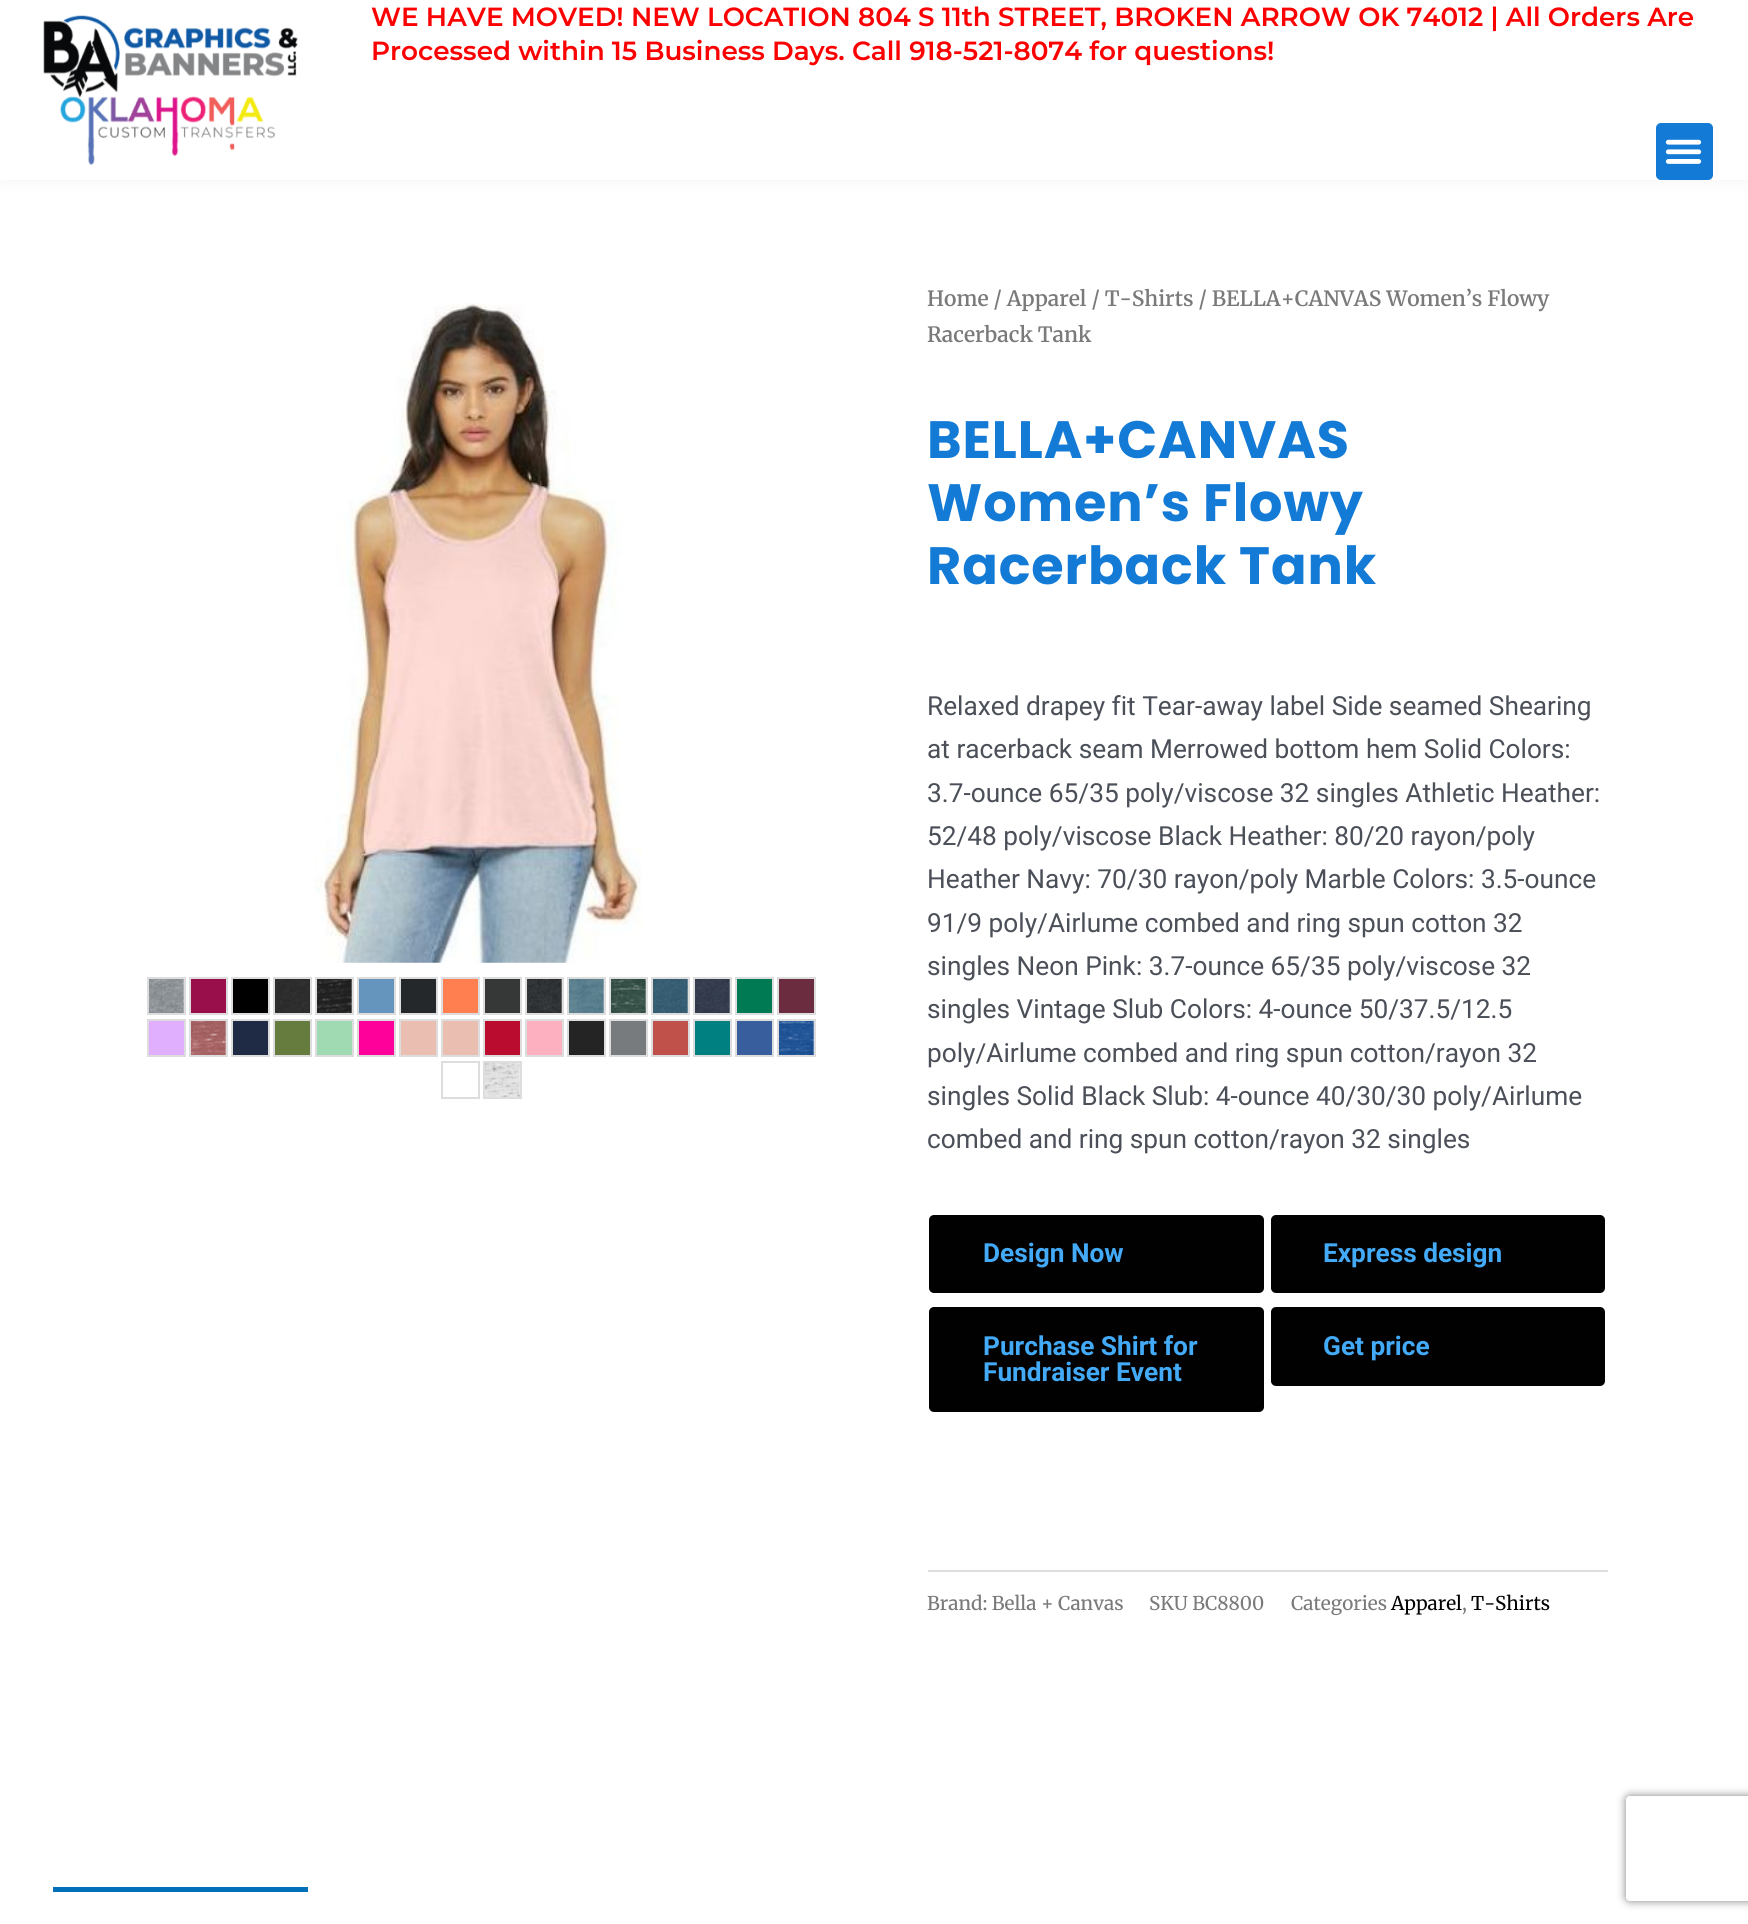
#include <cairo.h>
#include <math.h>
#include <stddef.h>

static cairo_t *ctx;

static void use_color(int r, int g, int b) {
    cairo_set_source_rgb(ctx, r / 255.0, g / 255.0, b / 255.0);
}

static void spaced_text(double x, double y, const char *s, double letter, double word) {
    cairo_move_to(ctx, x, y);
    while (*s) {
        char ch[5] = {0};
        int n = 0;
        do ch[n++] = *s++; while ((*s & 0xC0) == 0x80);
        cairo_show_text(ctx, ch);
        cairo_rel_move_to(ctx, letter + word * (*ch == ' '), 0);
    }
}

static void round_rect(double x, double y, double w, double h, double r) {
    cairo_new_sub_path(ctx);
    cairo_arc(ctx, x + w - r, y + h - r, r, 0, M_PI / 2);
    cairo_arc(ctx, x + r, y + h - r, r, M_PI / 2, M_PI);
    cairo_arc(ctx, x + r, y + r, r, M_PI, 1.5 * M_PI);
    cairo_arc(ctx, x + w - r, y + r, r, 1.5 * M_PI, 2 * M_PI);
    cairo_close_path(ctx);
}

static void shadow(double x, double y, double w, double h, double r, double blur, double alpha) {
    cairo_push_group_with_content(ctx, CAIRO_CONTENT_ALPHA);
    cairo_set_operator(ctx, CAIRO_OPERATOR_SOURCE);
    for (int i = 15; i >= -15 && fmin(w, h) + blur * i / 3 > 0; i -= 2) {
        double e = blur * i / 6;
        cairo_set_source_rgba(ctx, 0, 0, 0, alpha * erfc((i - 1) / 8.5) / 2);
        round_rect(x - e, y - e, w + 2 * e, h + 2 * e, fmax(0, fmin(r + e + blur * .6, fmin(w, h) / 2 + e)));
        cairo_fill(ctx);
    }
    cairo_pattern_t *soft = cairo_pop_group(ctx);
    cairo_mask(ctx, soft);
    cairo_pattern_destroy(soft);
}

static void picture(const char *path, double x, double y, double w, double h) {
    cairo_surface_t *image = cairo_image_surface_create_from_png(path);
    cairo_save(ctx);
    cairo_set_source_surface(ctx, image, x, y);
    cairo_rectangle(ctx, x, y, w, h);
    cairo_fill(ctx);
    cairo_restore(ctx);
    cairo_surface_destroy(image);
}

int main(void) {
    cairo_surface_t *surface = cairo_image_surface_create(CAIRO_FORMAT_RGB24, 1748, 1924);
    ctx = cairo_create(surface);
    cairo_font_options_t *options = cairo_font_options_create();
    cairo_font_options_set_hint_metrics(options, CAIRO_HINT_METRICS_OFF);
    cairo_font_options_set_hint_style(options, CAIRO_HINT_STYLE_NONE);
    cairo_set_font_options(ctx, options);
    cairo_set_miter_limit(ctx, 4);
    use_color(255, 255, 255);
    cairo_paint(ctx);
    use_color(0, 0, 0);
    shadow(0, 0, 1748, 180, 0, 9, 0.05);
    use_color(255, 255, 255);
    cairo_rectangle(ctx, 0, 0, 1748, 180);
    cairo_fill(ctx);
    picture("img1.png", 43, 15, 255, 150);
    cairo_select_font_face(ctx, "Montserrat SemiBold", CAIRO_FONT_SLANT_NORMAL, CAIRO_FONT_WEIGHT_NORMAL);
    cairo_set_font_size(ctx, 26.25);
    use_color(252, 1, 1);
    cairo_move_to(ctx, 371, 26);
    cairo_show_text(ctx, "WE HAVE MOVED! NEW LOCATION 804 S 11th STREET, BROKEN ARROW OK 74012 | All Orders Are");
    cairo_move_to(ctx, 371, 60);
    cairo_show_text(ctx, "Processed within 15 Business Days. Call 918-521-8074 for questions!");
    use_color(19, 123, 214);
    round_rect(1656, 123, 57, 57, 5);
    cairo_fill(ctx);
    picture("img2.png", 1665, 139, 37, 25);
    picture("img3.png", 315, 303, 327, 660);
    picture("img4.png", 149, 979, 35, 34);
    cairo_rectangle(ctx, 148, 978, 37, 36);
    use_color(221, 221, 221);
    cairo_stroke(ctx);
    use_color(153, 15, 75);
    cairo_rectangle(ctx, 190, 978, 37, 36);
    cairo_fill_preserve(ctx);
    use_color(221, 221, 221);
    cairo_stroke(ctx);
    use_color(0, 0, 0);
    cairo_rectangle(ctx, 232, 978, 37, 36);
    cairo_fill_preserve(ctx);
    use_color(221, 221, 221);
    cairo_stroke(ctx);
    use_color(46, 45, 45);
    cairo_rectangle(ctx, 275, 979, 35, 34);
    cairo_fill(ctx);
    picture("img5.png", 277, 979, 31, 32);
    cairo_rectangle(ctx, 274, 978, 37, 36);
    use_color(221, 221, 221);
    cairo_stroke(ctx);
    picture("img6.png", 317, 979, 35, 34);
    cairo_rectangle(ctx, 316, 978, 37, 36);
    cairo_stroke(ctx);
    use_color(101, 148, 188);
    cairo_rectangle(ctx, 358, 978, 37, 36);
    cairo_fill_preserve(ctx);
    use_color(221, 221, 221);
    cairo_stroke(ctx);
    use_color(37, 40, 42);
    cairo_rectangle(ctx, 400, 978, 37, 36);
    cairo_fill_preserve(ctx);
    use_color(221, 221, 221);
    cairo_stroke(ctx);
    use_color(255, 127, 80);
    cairo_rectangle(ctx, 442, 978, 37, 36);
    cairo_fill_preserve(ctx);
    use_color(221, 221, 221);
    cairo_stroke(ctx);
    use_color(54, 55, 55);
    cairo_rectangle(ctx, 484, 978, 37, 36);
    cairo_fill_preserve(ctx);
    use_color(221, 221, 221);
    cairo_stroke(ctx);
    picture("img7.png", 527, 979, 35, 34);
    cairo_rectangle(ctx, 526, 978, 37, 36);
    cairo_stroke(ctx);
    picture("img8.png", 569, 979, 35, 34);
    cairo_rectangle(ctx, 568, 978, 37, 36);
    cairo_stroke(ctx);
    picture("img9.png", 611, 979, 35, 34);
    cairo_rectangle(ctx, 610, 978, 37, 36);
    cairo_stroke(ctx);
    picture("img10.png", 653, 979, 35, 34);
    cairo_rectangle(ctx, 652, 978, 37, 36);
    cairo_stroke(ctx);
    picture("img11.png", 695, 979, 35, 34);
    cairo_rectangle(ctx, 694, 978, 37, 36);
    cairo_stroke(ctx);
    use_color(0, 122, 83);
    cairo_rectangle(ctx, 736, 978, 37, 36);
    cairo_fill_preserve(ctx);
    use_color(221, 221, 221);
    cairo_stroke(ctx);
    use_color(106, 44, 62);
    cairo_rectangle(ctx, 778, 978, 37, 36);
    cairo_fill_preserve(ctx);
    use_color(221, 221, 221);
    cairo_stroke(ctx);
    use_color(224, 176, 255);
    cairo_rectangle(ctx, 148, 1020, 37, 36);
    cairo_fill_preserve(ctx);
    use_color(221, 221, 221);
    cairo_stroke(ctx);
    picture("img12.png", 191, 1021, 35, 34);
    cairo_rectangle(ctx, 190, 1020, 37, 36);
    cairo_stroke(ctx);
    use_color(31, 42, 68);
    cairo_rectangle(ctx, 232, 1020, 37, 36);
    cairo_fill_preserve(ctx);
    use_color(221, 221, 221);
    cairo_stroke(ctx);
    use_color(102, 124, 62);
    cairo_rectangle(ctx, 274, 1020, 37, 36);
    cairo_fill_preserve(ctx);
    use_color(221, 221, 221);
    cairo_stroke(ctx);
    use_color(160, 218, 179);
    cairo_rectangle(ctx, 316, 1020, 37, 36);
    cairo_fill_preserve(ctx);
    use_color(221, 221, 221);
    cairo_stroke(ctx);
    use_color(254, 1, 154);
    cairo_rectangle(ctx, 358, 1020, 37, 36);
    cairo_fill_preserve(ctx);
    use_color(221, 221, 221);
    cairo_stroke(ctx);
    use_color(234, 190, 176);
    cairo_rectangle(ctx, 400, 1020, 37, 36);
    cairo_fill_preserve(ctx);
    use_color(221, 221, 221);
    cairo_stroke(ctx);
    use_color(234, 190, 176);
    cairo_rectangle(ctx, 442, 1020, 37, 36);
    cairo_fill_preserve(ctx);
    use_color(221, 221, 221);
    cairo_stroke(ctx);
    use_color(186, 12, 47);
    cairo_rectangle(ctx, 484, 1020, 37, 36);
    cairo_fill_preserve(ctx);
    use_color(221, 221, 221);
    cairo_stroke(ctx);
    use_color(253, 176, 192);
    cairo_rectangle(ctx, 526, 1020, 37, 36);
    cairo_fill_preserve(ctx);
    use_color(221, 221, 221);
    cairo_stroke(ctx);
    use_color(36, 36, 36);
    cairo_rectangle(ctx, 568, 1020, 37, 36);
    cairo_fill_preserve(ctx);
    use_color(221, 221, 221);
    cairo_stroke(ctx);
    use_color(120, 123, 126);
    cairo_rectangle(ctx, 610, 1020, 37, 36);
    cairo_fill_preserve(ctx);
    use_color(221, 221, 221);
    cairo_stroke(ctx);
    use_color(192, 81, 74);
    cairo_rectangle(ctx, 652, 1020, 37, 36);
    cairo_fill_preserve(ctx);
    use_color(221, 221, 221);
    cairo_stroke(ctx);
    use_color(0, 128, 128);
    cairo_rectangle(ctx, 694, 1020, 37, 36);
    cairo_fill_preserve(ctx);
    use_color(221, 221, 221);
    cairo_stroke(ctx);
    use_color(56, 94, 157);
    cairo_rectangle(ctx, 736, 1020, 37, 36);
    cairo_fill_preserve(ctx);
    use_color(221, 221, 221);
    cairo_stroke(ctx);
    picture("img13.png", 779, 1021, 35, 34);
    cairo_rectangle(ctx, 778, 1020, 37, 36);
    cairo_stroke(ctx);
    cairo_rectangle(ctx, 442, 1062, 37, 36);
    cairo_stroke(ctx);
    picture("img14.png", 485, 1063, 35, 34);
    cairo_rectangle(ctx, 484, 1062, 37, 36);
    cairo_stroke(ctx);
    cairo_select_font_face(ctx, "Merriweather SemiBold", CAIRO_FONT_SLANT_NORMAL, CAIRO_FONT_WEIGHT_NORMAL);
    cairo_set_font_size(ctx, 21);
    use_color(122, 122, 122);
    cairo_move_to(ctx, 927, 306);
    cairo_show_text(ctx, "Home / Apparel / T-Shirts / BELLA+CANVAS Women’s Flowy");
    cairo_move_to(ctx, 927, 342);
    cairo_show_text(ctx, "Racerback Tank");
    cairo_select_font_face(ctx, "Poppins", CAIRO_FONT_SLANT_NORMAL, CAIRO_FONT_WEIGHT_BOLD);
    cairo_set_font_size(ctx, 52.5);
    use_color(19, 123, 214);
    spaced_text(927, 458, "BELLA+CANVAS", 0.9, 0);
    spaced_text(927, 521, "Women’s Flowy", 0.9, 0);
    spaced_text(927, 584, "Racerback Tank", 0.9, 0);
    cairo_select_font_face(ctx, "Roboto", CAIRO_FONT_SLANT_NORMAL, CAIRO_FONT_WEIGHT_NORMAL);
    cairo_set_font_size(ctx, 26.25);
    use_color(75, 79, 88);
    cairo_move_to(ctx, 927, 715);
    cairo_show_text(ctx, "Relaxed drapey fit Tear-away label Side seamed Shearing");
    cairo_move_to(ctx, 927, 758);
    cairo_show_text(ctx, "at racerback seam Merrowed bottom hem Solid Colors:");
    cairo_move_to(ctx, 927, 802);
    cairo_show_text(ctx, "3.7-ounce 65/35 poly/viscose 32 singles Athletic Heather:");
    cairo_move_to(ctx, 927, 845);
    cairo_show_text(ctx, "52/48 poly/viscose Black Heather: 80/20 rayon/poly");
    cairo_move_to(ctx, 927, 888);
    cairo_show_text(ctx, "Heather Navy: 70/30 rayon/poly Marble Colors: 3.5-ounce");
    cairo_move_to(ctx, 927, 932);
    cairo_show_text(ctx, "91/9 poly/Airlume combed and ring spun cotton 32");
    cairo_move_to(ctx, 927, 975);
    cairo_show_text(ctx, "singles Neon Pink: 3.7-ounce 65/35 poly/viscose 32");
    cairo_move_to(ctx, 927, 1018);
    cairo_show_text(ctx, "singles Vintage Slub Colors: 4-ounce 50/37.5/12.5");
    cairo_move_to(ctx, 927, 1062);
    cairo_show_text(ctx, "poly/Airlume combed and ring spun cotton/rayon 32");
    cairo_move_to(ctx, 927, 1105);
    cairo_show_text(ctx, "singles Solid Black Slub: 4-ounce 40/30/30 poly/Airlume");
    cairo_move_to(ctx, 927, 1148);
    cairo_show_text(ctx, "combed and ring spun cotton/rayon 32 singles");
    use_color(1, 1, 1);
    round_rect(929, 1215, 335, 78, 5);
    cairo_fill(ctx);
    cairo_select_font_face(ctx, "Roboto", CAIRO_FONT_SLANT_NORMAL, CAIRO_FONT_WEIGHT_BOLD);
    use_color(67, 170, 247);
    cairo_move_to(ctx, 983, 1262);
    cairo_show_text(ctx, "Design Now");
    use_color(1, 1, 1);
    round_rect(1271, 1215, 334, 78, 5);
    cairo_fill(ctx);
    use_color(67, 170, 247);
    cairo_move_to(ctx, 1323, 1262);
    cairo_show_text(ctx, "Express design");
    use_color(1, 1, 1);
    round_rect(929, 1307, 335, 105, 5);
    cairo_fill(ctx);
    use_color(67, 170, 247);
    cairo_move_to(ctx, 983, 1355);
    cairo_show_text(ctx, "Purchase Shirt for");
    cairo_move_to(ctx, 983, 1381);
    cairo_show_text(ctx, "Fundraiser Event");
    use_color(1, 1, 1);
    round_rect(1271, 1307, 334, 79, 5);
    cairo_fill(ctx);
    use_color(67, 170, 247);
    cairo_move_to(ctx, 1323, 1355);
    cairo_show_text(ctx, "Get price");
    use_color(221, 221, 221);
    cairo_rectangle(ctx, 928, 1570, 680, 2);
    cairo_fill(ctx);
    cairo_select_font_face(ctx, "Merriweather Medium", CAIRO_FONT_SLANT_NORMAL, CAIRO_FONT_WEIGHT_NORMAL);
    cairo_set_font_size(ctx, 18.9);
    use_color(122, 122, 122);
    cairo_move_to(ctx, 927, 1610);
    cairo_show_text(ctx, "Brand: Bella + Canvas");
    cairo_select_font_face(ctx, "Merriweather", CAIRO_FONT_SLANT_NORMAL, CAIRO_FONT_WEIGHT_NORMAL);
    cairo_move_to(ctx, 1149, 1610);
    cairo_show_text(ctx, "SKU BC8800");
    cairo_move_to(ctx, 1291, 1610);
    cairo_show_text(ctx, "Categories");
    use_color(0, 0, 0);
    cairo_move_to(ctx, 1391, 1610);
    cairo_show_text(ctx, "Apparel");
    use_color(122, 122, 122);
    cairo_move_to(ctx, 1462, 1610);
    cairo_show_text(ctx, ",");
    use_color(0, 0, 0);
    cairo_move_to(ctx, 1471, 1610);
    cairo_show_text(ctx, "T-Shirts");
    use_color(1, 112, 185);
    cairo_rectangle(ctx, 53, 1887, 255, 5);
    cairo_fill(ctx);
    cairo_save(ctx);
    cairo_set_fill_rule(ctx, CAIRO_FILL_RULE_EVEN_ODD);
    cairo_new_path(ctx);
    cairo_move_to(ctx, 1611, 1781);
    cairo_line_to(ctx, 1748, 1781);
    cairo_line_to(ctx, 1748, 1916);
    cairo_line_to(ctx, 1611, 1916);
    cairo_close_path(ctx);
    cairo_move_to(ctx, 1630, 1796);
    cairo_line_to(ctx, 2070, 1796);
    cairo_curve_to(ctx, 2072, 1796, 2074, 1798, 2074, 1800);
    cairo_line_to(ctx, 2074, 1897);
    cairo_curve_to(ctx, 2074, 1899, 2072, 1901, 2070, 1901);
    cairo_line_to(ctx, 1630, 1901);
    cairo_curve_to(ctx, 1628, 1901, 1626, 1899, 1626, 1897);
    cairo_line_to(ctx, 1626, 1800);
    cairo_curve_to(ctx, 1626, 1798, 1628, 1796, 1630, 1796);
    cairo_close_path(ctx);
    cairo_clip(ctx);
    use_color(128, 128, 128);
    shadow(1626, 1796, 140, 105, 4, 4.5, 1);
    cairo_restore(ctx);
    cairo_surface_write_to_png(surface, "result.png");
    cairo_font_options_destroy(options);
    cairo_destroy(ctx);
    cairo_surface_destroy(surface);
    return 0;
}
